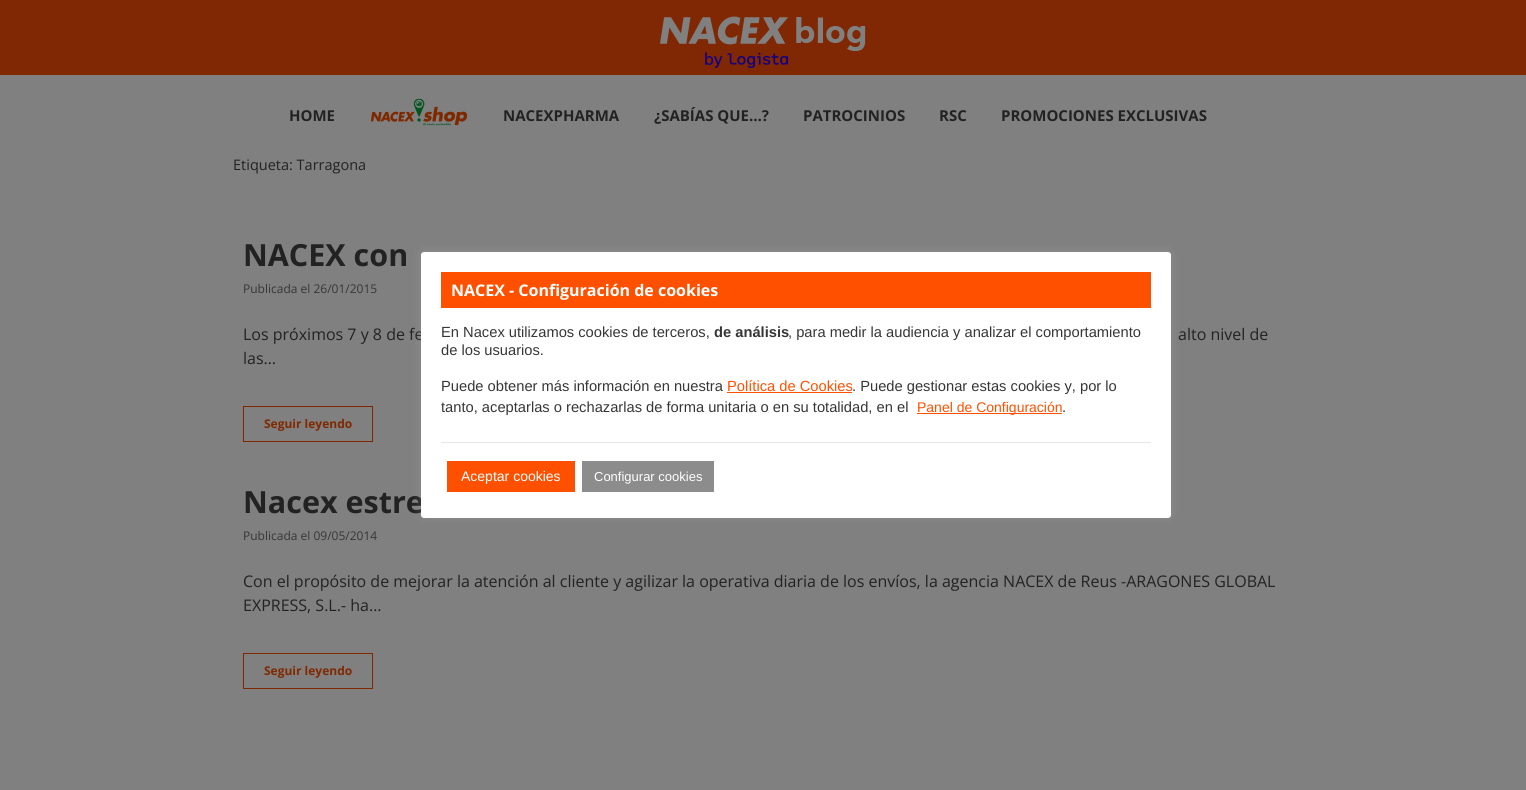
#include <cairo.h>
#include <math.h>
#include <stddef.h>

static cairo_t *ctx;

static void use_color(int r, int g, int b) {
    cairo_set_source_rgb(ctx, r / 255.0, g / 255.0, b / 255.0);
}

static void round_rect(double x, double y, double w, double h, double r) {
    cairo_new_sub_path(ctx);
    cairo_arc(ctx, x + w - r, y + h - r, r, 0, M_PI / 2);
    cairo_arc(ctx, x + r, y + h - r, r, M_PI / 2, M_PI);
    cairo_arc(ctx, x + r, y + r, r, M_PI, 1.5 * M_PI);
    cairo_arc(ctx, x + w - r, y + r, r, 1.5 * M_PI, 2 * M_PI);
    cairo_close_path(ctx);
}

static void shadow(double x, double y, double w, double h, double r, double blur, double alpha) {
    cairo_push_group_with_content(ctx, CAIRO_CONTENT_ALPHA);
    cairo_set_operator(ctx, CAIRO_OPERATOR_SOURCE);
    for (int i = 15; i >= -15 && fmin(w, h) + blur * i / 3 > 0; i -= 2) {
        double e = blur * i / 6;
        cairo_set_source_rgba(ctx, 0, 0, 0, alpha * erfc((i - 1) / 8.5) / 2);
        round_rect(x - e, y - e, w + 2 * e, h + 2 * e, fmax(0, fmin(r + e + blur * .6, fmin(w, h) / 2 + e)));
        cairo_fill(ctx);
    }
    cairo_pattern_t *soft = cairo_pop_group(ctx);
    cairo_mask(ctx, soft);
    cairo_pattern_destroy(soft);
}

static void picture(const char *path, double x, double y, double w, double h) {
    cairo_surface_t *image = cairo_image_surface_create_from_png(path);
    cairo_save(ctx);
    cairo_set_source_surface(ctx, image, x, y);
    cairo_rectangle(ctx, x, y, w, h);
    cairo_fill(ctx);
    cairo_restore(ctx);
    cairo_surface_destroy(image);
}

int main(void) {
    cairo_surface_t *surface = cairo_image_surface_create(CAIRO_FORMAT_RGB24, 1526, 790);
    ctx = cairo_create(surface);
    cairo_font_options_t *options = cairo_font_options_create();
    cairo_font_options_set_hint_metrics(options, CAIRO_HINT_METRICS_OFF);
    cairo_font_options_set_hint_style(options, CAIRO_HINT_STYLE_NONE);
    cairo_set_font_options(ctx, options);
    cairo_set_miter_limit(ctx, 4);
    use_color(128, 128, 128);
    cairo_paint(ctx);
    use_color(128, 39, 3);
    cairo_rectangle(ctx, 0, 0, 1526, 75);
    cairo_fill(ctx);
    picture("img1.png", 660, 16, 206, 52);
    cairo_select_font_face(ctx, "Open Sans", CAIRO_FONT_SLANT_NORMAL, CAIRO_FONT_WEIGHT_BOLD);
    cairo_set_font_size(ctx, 15);
    use_color(34, 34, 34);
    cairo_move_to(ctx, 289, 121);
    cairo_show_text(ctx, "HOME");
    picture("img2.png", 371, 98, 96, 28);
    cairo_move_to(ctx, 503, 121);
    cairo_show_text(ctx, "NACEXPHARMA");
    cairo_move_to(ctx, 654, 121);
    cairo_show_text(ctx, "¿SABÍAS QUE…?");
    cairo_move_to(ctx, 803, 121);
    cairo_show_text(ctx, "PATROCINIOS");
    cairo_move_to(ctx, 939, 121);
    cairo_show_text(ctx, "RSC");
    cairo_move_to(ctx, 1001, 121);
    cairo_show_text(ctx, "PROMOCIONES EXCLUSIVAS");
    cairo_select_font_face(ctx, "Open Sans", CAIRO_FONT_SLANT_NORMAL, CAIRO_FONT_WEIGHT_NORMAL);
    cairo_set_font_size(ctx, 14.5);
    cairo_move_to(ctx, 233, 170);
    cairo_show_text(ctx, "Etiqueta: Tarragona");
    cairo_select_font_face(ctx, "Open Sans", CAIRO_FONT_SLANT_NORMAL, CAIRO_FONT_WEIGHT_BOLD);
    cairo_set_font_size(ctx, 30.5);
    cairo_move_to(ctx, 243, 266);
    cairo_show_text(ctx, "NACEX con");
    cairo_select_font_face(ctx, "Open Sans", CAIRO_FONT_SLANT_NORMAL, CAIRO_FONT_WEIGHT_NORMAL);
    cairo_set_font_size(ctx, 12);
    use_color(54, 54, 54);
    cairo_move_to(ctx, 243, 293);
    cairo_show_text(ctx, "Publicada el 26/01/2015");
    cairo_set_font_size(ctx, 16);
    use_color(34, 34, 34);
    cairo_move_to(ctx, 243, 340);
    cairo_show_text(ctx, "Los próximos 7 y 8 de fe");
    cairo_move_to(ctx, 1178, 340);
    cairo_show_text(ctx, "alto nivel de");
    cairo_move_to(ctx, 243, 364);
    cairo_show_text(ctx, "las…");
    cairo_rectangle(ctx, 243.5, 406.5, 129, 35);
    use_color(128, 40, 0);
    cairo_set_line_width(ctx, 1);
    cairo_stroke(ctx);
    cairo_select_font_face(ctx, "Open Sans", CAIRO_FONT_SLANT_NORMAL, CAIRO_FONT_WEIGHT_BOLD);
    cairo_set_font_size(ctx, 12);
    cairo_move_to(ctx, 264, 428);
    cairo_show_text(ctx, "Seguir leyendo");
    cairo_set_font_size(ctx, 30.5);
    use_color(34, 34, 34);
    cairo_move_to(ctx, 243, 513);
    cairo_show_text(ctx, "Nacex estre");
    cairo_select_font_face(ctx, "Open Sans", CAIRO_FONT_SLANT_NORMAL, CAIRO_FONT_WEIGHT_NORMAL);
    cairo_set_font_size(ctx, 12);
    use_color(54, 54, 54);
    cairo_move_to(ctx, 243, 540);
    cairo_show_text(ctx, "Publicada el 09/05/2014");
    cairo_set_font_size(ctx, 16);
    use_color(34, 34, 34);
    cairo_move_to(ctx, 243, 587);
    cairo_show_text(ctx, "Con el propósito de mejorar la atención al cliente y agilizar la operativa diaria de los envíos, la agencia NACEX de Reus -ARAGONES GLOBAL");
    cairo_move_to(ctx, 243, 611);
    cairo_show_text(ctx, "EXPRESS, S.L.- ha…");
    cairo_rectangle(ctx, 243.5, 653.5, 129, 35);
    use_color(128, 40, 0);
    cairo_stroke(ctx);
    cairo_select_font_face(ctx, "Open Sans", CAIRO_FONT_SLANT_NORMAL, CAIRO_FONT_WEIGHT_BOLD);
    cairo_set_font_size(ctx, 12);
    cairo_move_to(ctx, 264, 675);
    cairo_show_text(ctx, "Seguir leyendo");
    use_color(172, 171, 171);
    shadow(421, 251, 750, 266, 3, 5, 0.3);
    use_color(255, 255, 255);
    round_rect(421, 252, 750, 266, 3);
    cairo_fill(ctx);
    use_color(255, 80, 0);
    cairo_rectangle(ctx, 441, 272, 710, 36);
    cairo_fill(ctx);
    cairo_set_font_size(ctx, 16);
    use_color(255, 255, 255);
    cairo_move_to(ctx, 451, 296);
    cairo_show_text(ctx, "NACEX - Configuración de cookies");
    cairo_select_font_face(ctx, "Liberation Sans", CAIRO_FONT_SLANT_NORMAL, CAIRO_FONT_WEIGHT_NORMAL);
    cairo_set_font_size(ctx, 14.7);
    use_color(54, 54, 54);
    cairo_move_to(ctx, 441, 337);
    cairo_show_text(ctx, "En Nacex utilizamos cookies de terceros,");
    cairo_select_font_face(ctx, "Liberation Sans", CAIRO_FONT_SLANT_NORMAL, CAIRO_FONT_WEIGHT_BOLD);
    cairo_move_to(ctx, 714, 337);
    cairo_show_text(ctx, "de análisis");
    cairo_select_font_face(ctx, "Liberation Sans", CAIRO_FONT_SLANT_NORMAL, CAIRO_FONT_WEIGHT_NORMAL);
    cairo_move_to(ctx, 788, 337);
    cairo_show_text(ctx, ", para medir la audiencia y analizar el comportamiento");
    cairo_move_to(ctx, 441, 355);
    cairo_show_text(ctx, "de los usuarios.");
    cairo_move_to(ctx, 441, 391);
    cairo_show_text(ctx, "Puede obtener más información en nuestra");
    use_color(255, 80, 0);
    cairo_move_to(ctx, 727, 391);
    cairo_show_text(ctx, "Política de Cookies");
    cairo_rectangle(ctx, 727, 392, 125, 1);
    cairo_fill(ctx);
    use_color(54, 54, 54);
    cairo_move_to(ctx, 852, 391);
    cairo_show_text(ctx, ". Puede gestionar estas cookies y, por lo");
    cairo_move_to(ctx, 441, 412);
    cairo_show_text(ctx, "tanto, aceptarlas o rechazarlas de forma unitaria o en su totalidad, en el");
    use_color(255, 80, 0);
    cairo_rectangle(ctx, 917, 413, 145, 1);
    cairo_fill(ctx);
    cairo_set_font_size(ctx, 14);
    cairo_move_to(ctx, 917, 412);
    cairo_show_text(ctx, "Panel de Configuración");
    cairo_set_font_size(ctx, 14.7);
    use_color(54, 54, 54);
    cairo_move_to(ctx, 1062, 412);
    cairo_show_text(ctx, ".");
    use_color(231, 231, 231);
    cairo_rectangle(ctx, 441, 442, 710, 1);
    cairo_fill(ctx);
    use_color(255, 80, 0);
    cairo_rectangle(ctx, 447, 461, 128, 31);
    cairo_fill(ctx);
    cairo_set_font_size(ctx, 14);
    use_color(255, 255, 255);
    cairo_move_to(ctx, 461, 481);
    cairo_show_text(ctx, "Aceptar cookies");
    use_color(140, 140, 140);
    cairo_rectangle(ctx, 582, 461, 132, 31);
    cairo_fill(ctx);
    cairo_set_font_size(ctx, 13);
    use_color(255, 255, 255);
    cairo_move_to(ctx, 594, 481);
    cairo_show_text(ctx, "Configurar cookies");
    cairo_surface_write_to_png(surface, "result.png");
    cairo_font_options_destroy(options);
    cairo_destroy(ctx);
    cairo_surface_destroy(surface);
    return 0;
}
